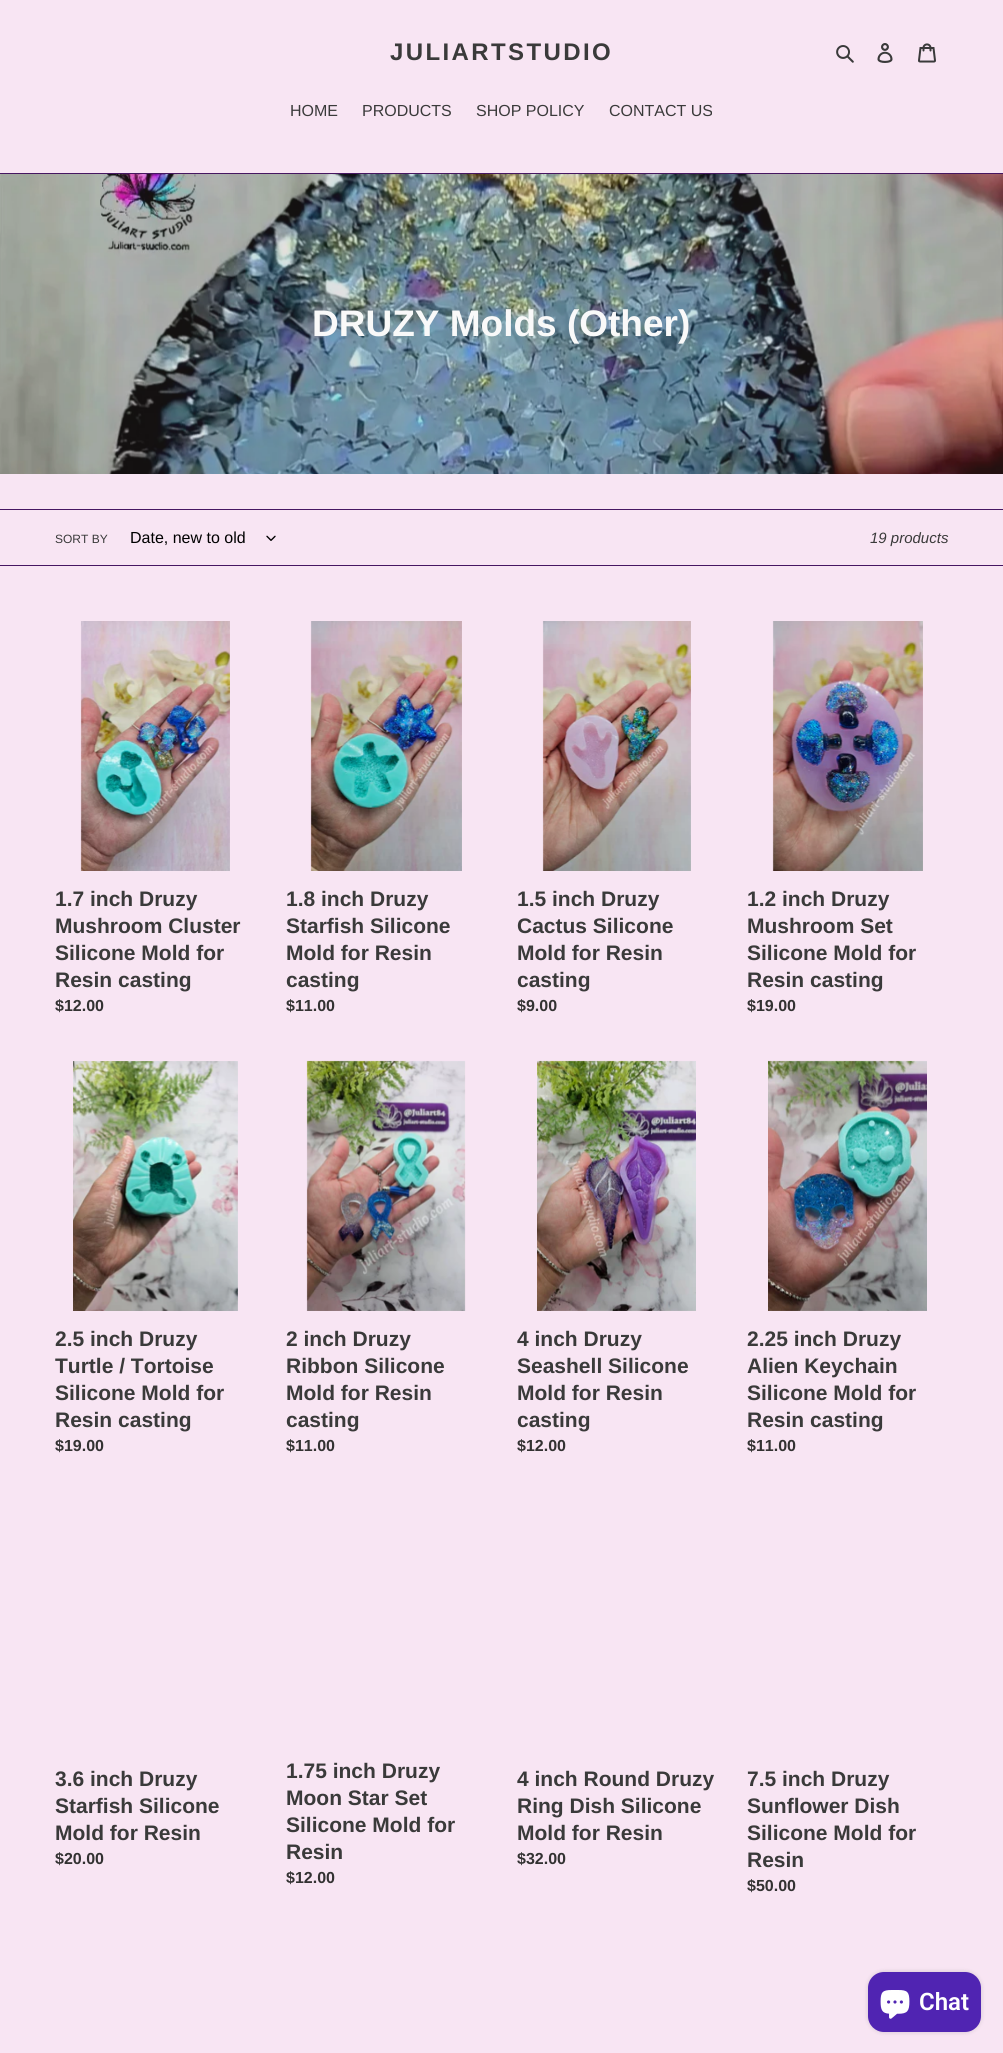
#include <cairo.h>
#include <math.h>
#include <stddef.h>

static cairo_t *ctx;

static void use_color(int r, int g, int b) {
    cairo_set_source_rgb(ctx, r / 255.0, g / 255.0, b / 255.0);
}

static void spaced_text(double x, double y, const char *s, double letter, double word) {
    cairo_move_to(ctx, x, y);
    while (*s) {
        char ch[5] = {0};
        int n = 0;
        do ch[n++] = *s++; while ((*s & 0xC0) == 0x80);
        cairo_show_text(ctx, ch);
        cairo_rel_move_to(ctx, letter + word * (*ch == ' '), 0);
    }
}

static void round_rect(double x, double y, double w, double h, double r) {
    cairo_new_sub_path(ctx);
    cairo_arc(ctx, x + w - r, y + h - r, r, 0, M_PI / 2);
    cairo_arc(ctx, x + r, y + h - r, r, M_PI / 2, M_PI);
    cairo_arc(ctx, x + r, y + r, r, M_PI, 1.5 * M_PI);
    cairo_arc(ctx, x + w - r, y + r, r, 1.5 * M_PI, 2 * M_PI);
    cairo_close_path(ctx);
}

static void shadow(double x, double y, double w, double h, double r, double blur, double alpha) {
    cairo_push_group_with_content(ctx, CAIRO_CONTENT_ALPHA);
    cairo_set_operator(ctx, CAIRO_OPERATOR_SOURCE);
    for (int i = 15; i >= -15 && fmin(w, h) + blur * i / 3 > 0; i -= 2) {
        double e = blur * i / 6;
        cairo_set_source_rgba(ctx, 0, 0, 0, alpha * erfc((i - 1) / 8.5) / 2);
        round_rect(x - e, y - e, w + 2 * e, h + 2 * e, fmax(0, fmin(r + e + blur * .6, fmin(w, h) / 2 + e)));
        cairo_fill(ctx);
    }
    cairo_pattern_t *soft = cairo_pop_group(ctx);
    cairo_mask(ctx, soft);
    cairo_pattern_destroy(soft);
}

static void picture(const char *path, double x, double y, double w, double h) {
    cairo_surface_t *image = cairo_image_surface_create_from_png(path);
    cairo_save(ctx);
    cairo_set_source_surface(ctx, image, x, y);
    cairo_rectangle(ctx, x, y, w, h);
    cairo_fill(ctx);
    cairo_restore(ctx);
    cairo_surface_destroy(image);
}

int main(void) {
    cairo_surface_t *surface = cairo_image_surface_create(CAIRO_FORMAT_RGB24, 1003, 2053);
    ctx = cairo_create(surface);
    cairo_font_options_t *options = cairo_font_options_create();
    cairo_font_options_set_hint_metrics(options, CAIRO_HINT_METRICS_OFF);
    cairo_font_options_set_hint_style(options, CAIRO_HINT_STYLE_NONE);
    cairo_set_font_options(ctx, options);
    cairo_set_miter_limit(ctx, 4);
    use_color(248, 229, 243);
    cairo_paint(ctx);
    cairo_select_font_face(ctx, "Liberation Sans", CAIRO_FONT_SLANT_NORMAL, CAIRO_FONT_WEIGHT_BOLD);
    cairo_set_font_size(ctx, 24);
    use_color(58, 58, 58);
    spaced_text(390, 60, "JULIARTSTUDIO", 2.4, 0);
    picture("img1.png", 836, 45, 18, 18);
    picture("img2.png", 877, 43, 16, 20);
    picture("img3.png", 918, 43, 18, 20);
    use_color(70, 22, 97);
    cairo_rectangle(ctx, 0, 173, 1003, 1);
    cairo_fill(ctx);
    cairo_select_font_face(ctx, "Liberation Sans", CAIRO_FONT_SLANT_NORMAL, CAIRO_FONT_WEIGHT_NORMAL);
    cairo_set_font_size(ctx, 16);
    use_color(58, 58, 58);
    cairo_move_to(ctx, 290, 116);
    cairo_show_text(ctx, "HOME");
    cairo_move_to(ctx, 362, 116);
    cairo_show_text(ctx, "PRODUCTS");
    cairo_move_to(ctx, 476, 116);
    cairo_show_text(ctx, "SHOP POLICY");
    cairo_move_to(ctx, 609, 116);
    cairo_show_text(ctx, "CONTACT US");
    picture("img4.png", 0, 174, 1003, 300);
    cairo_select_font_face(ctx, "Liberation Sans", CAIRO_FONT_SLANT_NORMAL, CAIRO_FONT_WEIGHT_BOLD);
    cairo_set_font_size(ctx, 37);
    use_color(249, 249, 249);
    cairo_move_to(ctx, 312, 336);
    cairo_show_text(ctx, "DRUZY Molds (Other)");
    use_color(70, 22, 97);
    cairo_rectangle(ctx, 0, 509, 1003, 1);
    cairo_fill(ctx);
    cairo_rectangle(ctx, 0, 565, 1003, 1);
    cairo_fill(ctx);
    cairo_select_font_face(ctx, "Liberation Sans", CAIRO_FONT_SLANT_NORMAL, CAIRO_FONT_WEIGHT_NORMAL);
    cairo_set_font_size(ctx, 12);
    use_color(58, 58, 58);
    cairo_move_to(ctx, 55, 543);
    cairo_show_text(ctx, "SORT BY");
    cairo_set_font_size(ctx, 16);
    use_color(0, 0, 0);
    cairo_move_to(ctx, 130, 543);
    cairo_show_text(ctx, "Date, new to old");
    picture("img5.png", 266, 535, 10, 6);
    cairo_select_font_face(ctx, "Liberation Sans", CAIRO_FONT_SLANT_ITALIC, CAIRO_FONT_WEIGHT_NORMAL);
    cairo_set_font_size(ctx, 15);
    use_color(58, 58, 58);
    cairo_move_to(ctx, 870, 543);
    cairo_show_text(ctx, "19 products");
    picture("img6.png", 80, 621, 150, 250);
    cairo_select_font_face(ctx, "Liberation Sans", CAIRO_FONT_SLANT_NORMAL, CAIRO_FONT_WEIGHT_BOLD);
    cairo_set_font_size(ctx, 21);
    cairo_move_to(ctx, 55, 906);
    cairo_show_text(ctx, "1.7 inch Druzy");
    cairo_move_to(ctx, 55, 933);
    cairo_show_text(ctx, "Mushroom Cluster");
    cairo_move_to(ctx, 55, 960);
    cairo_show_text(ctx, "Silicone Mold for");
    cairo_move_to(ctx, 55, 987);
    cairo_show_text(ctx, "Resin casting");
    cairo_set_font_size(ctx, 16);
    use_color(51, 50, 50);
    cairo_move_to(ctx, 55, 1011);
    cairo_show_text(ctx, "$12.00");
    picture("img7.png", 310, 621, 152, 250);
    cairo_set_font_size(ctx, 21);
    use_color(58, 58, 58);
    cairo_move_to(ctx, 286, 906);
    cairo_show_text(ctx, "1.8 inch Druzy");
    cairo_move_to(ctx, 286, 933);
    cairo_show_text(ctx, "Starfish Silicone");
    cairo_move_to(ctx, 286, 960);
    cairo_show_text(ctx, "Mold for Resin");
    cairo_move_to(ctx, 286, 987);
    cairo_show_text(ctx, "casting");
    cairo_set_font_size(ctx, 16);
    use_color(51, 50, 50);
    cairo_move_to(ctx, 286, 1011);
    cairo_show_text(ctx, "$11.00");
    picture("img8.png", 542, 621, 149, 250);
    cairo_set_font_size(ctx, 21);
    use_color(58, 58, 58);
    cairo_move_to(ctx, 517, 906);
    cairo_show_text(ctx, "1.5 inch Druzy");
    cairo_move_to(ctx, 517, 933);
    cairo_show_text(ctx, "Cactus Silicone");
    cairo_move_to(ctx, 517, 960);
    cairo_show_text(ctx, "Mold for Resin");
    cairo_move_to(ctx, 517, 987);
    cairo_show_text(ctx, "casting");
    cairo_set_font_size(ctx, 16);
    use_color(51, 50, 50);
    cairo_move_to(ctx, 517, 1011);
    cairo_show_text(ctx, "$9.00");
    picture("img9.png", 772, 621, 151, 250);
    cairo_set_font_size(ctx, 21);
    use_color(58, 58, 58);
    cairo_move_to(ctx, 747, 906);
    cairo_show_text(ctx, "1.2 inch Druzy");
    cairo_move_to(ctx, 747, 933);
    cairo_show_text(ctx, "Mushroom Set");
    cairo_move_to(ctx, 747, 960);
    cairo_show_text(ctx, "Silicone Mold for");
    cairo_move_to(ctx, 747, 987);
    cairo_show_text(ctx, "Resin casting");
    cairo_set_font_size(ctx, 16);
    use_color(51, 50, 50);
    cairo_move_to(ctx, 747, 1011);
    cairo_show_text(ctx, "$19.00");
    picture("img10.png", 73, 1061, 165, 250);
    cairo_set_font_size(ctx, 21);
    use_color(58, 58, 58);
    cairo_move_to(ctx, 55, 1346);
    cairo_show_text(ctx, "2.5 inch Druzy");
    cairo_move_to(ctx, 55, 1373);
    cairo_show_text(ctx, "Turtle / Tortoise");
    cairo_move_to(ctx, 55, 1400);
    cairo_show_text(ctx, "Silicone Mold for");
    cairo_move_to(ctx, 55, 1427);
    cairo_show_text(ctx, "Resin casting");
    cairo_set_font_size(ctx, 16);
    use_color(51, 50, 50);
    cairo_move_to(ctx, 55, 1451);
    cairo_show_text(ctx, "$19.00");
    picture("img11.png", 306, 1060, 160, 251);
    cairo_set_font_size(ctx, 21);
    use_color(58, 58, 58);
    cairo_move_to(ctx, 286, 1346);
    cairo_show_text(ctx, "2 inch Druzy");
    cairo_move_to(ctx, 286, 1373);
    cairo_show_text(ctx, "Ribbon Silicone");
    cairo_move_to(ctx, 286, 1400);
    cairo_show_text(ctx, "Mold for Resin");
    cairo_move_to(ctx, 286, 1427);
    cairo_show_text(ctx, "casting");
    cairo_set_font_size(ctx, 16);
    use_color(51, 50, 50);
    cairo_move_to(ctx, 286, 1451);
    cairo_show_text(ctx, "$11.00");
    picture("img12.png", 537, 1060, 159, 251);
    cairo_set_font_size(ctx, 21);
    use_color(58, 58, 58);
    cairo_move_to(ctx, 517, 1346);
    cairo_show_text(ctx, "4 inch Druzy");
    cairo_move_to(ctx, 517, 1373);
    cairo_show_text(ctx, "Seashell Silicone");
    cairo_move_to(ctx, 517, 1400);
    cairo_show_text(ctx, "Mold for Resin");
    cairo_move_to(ctx, 517, 1427);
    cairo_show_text(ctx, "casting");
    cairo_set_font_size(ctx, 16);
    use_color(51, 50, 50);
    cairo_move_to(ctx, 517, 1451);
    cairo_show_text(ctx, "$12.00");
    picture("img13.png", 768, 1060, 159, 251);
    cairo_set_font_size(ctx, 21);
    use_color(58, 58, 58);
    cairo_move_to(ctx, 747, 1346);
    cairo_show_text(ctx, "2.25 inch Druzy");
    cairo_move_to(ctx, 747, 1373);
    cairo_show_text(ctx, "Alien Keychain");
    cairo_move_to(ctx, 747, 1400);
    cairo_show_text(ctx, "Silicone Mold for");
    cairo_move_to(ctx, 747, 1427);
    cairo_show_text(ctx, "Resin casting");
    cairo_set_font_size(ctx, 16);
    use_color(51, 50, 50);
    cairo_move_to(ctx, 747, 1451);
    cairo_show_text(ctx, "$11.00");
    cairo_set_font_size(ctx, 21);
    use_color(58, 58, 58);
    cairo_move_to(ctx, 55, 1786);
    cairo_show_text(ctx, "3.6 inch Druzy");
    cairo_move_to(ctx, 55, 1813);
    cairo_show_text(ctx, "Starfish Silicone");
    cairo_move_to(ctx, 55, 1840);
    cairo_show_text(ctx, "Mold for Resin");
    cairo_set_font_size(ctx, 16);
    use_color(51, 50, 50);
    cairo_move_to(ctx, 55, 1864);
    cairo_show_text(ctx, "$20.00");
    cairo_set_font_size(ctx, 21);
    use_color(58, 58, 58);
    cairo_move_to(ctx, 286, 1778);
    cairo_show_text(ctx, "1.75 inch Druzy");
    cairo_move_to(ctx, 286, 1805);
    cairo_show_text(ctx, "Moon Star Set");
    cairo_move_to(ctx, 286, 1832);
    cairo_show_text(ctx, "Silicone Mold for");
    cairo_move_to(ctx, 286, 1859);
    cairo_show_text(ctx, "Resin");
    cairo_set_font_size(ctx, 16);
    use_color(51, 50, 50);
    cairo_move_to(ctx, 286, 1883);
    cairo_show_text(ctx, "$12.00");
    cairo_set_font_size(ctx, 21);
    use_color(58, 58, 58);
    cairo_move_to(ctx, 517, 1786);
    cairo_show_text(ctx, "4 inch Round Druzy");
    cairo_move_to(ctx, 517, 1813);
    cairo_show_text(ctx, "Ring Dish Silicone");
    cairo_move_to(ctx, 517, 1840);
    cairo_show_text(ctx, "Mold for Resin");
    cairo_set_font_size(ctx, 16);
    use_color(51, 50, 50);
    cairo_move_to(ctx, 517, 1864);
    cairo_show_text(ctx, "$32.00");
    cairo_set_font_size(ctx, 21);
    use_color(58, 58, 58);
    cairo_move_to(ctx, 747, 1786);
    cairo_show_text(ctx, "7.5 inch Druzy");
    cairo_move_to(ctx, 747, 1813);
    cairo_show_text(ctx, "Sunflower Dish");
    cairo_move_to(ctx, 747, 1840);
    cairo_show_text(ctx, "Silicone Mold for");
    cairo_move_to(ctx, 747, 1867);
    cairo_show_text(ctx, "Resin");
    cairo_set_font_size(ctx, 16);
    use_color(51, 50, 50);
    cairo_move_to(ctx, 747, 1891);
    cairo_show_text(ctx, "$50.00");
    use_color(0, 0, 0);
    shadow(868, 1972, 113, 60, 16, 2.5, 0.15);
    use_color(80, 36, 178);
    round_rect(868, 1972, 113, 60, 16);
    cairo_fill(ctx);
    picture("img14.png", 880, 1990, 30, 29);
    cairo_select_font_face(ctx, "Roboto SemiBold", CAIRO_FONT_SLANT_NORMAL, CAIRO_FONT_WEIGHT_NORMAL);
    cairo_set_font_size(ctx, 24);
    use_color(255, 255, 255);
    cairo_move_to(ctx, 919, 2010);
    cairo_show_text(ctx, "Chat");
    cairo_surface_write_to_png(surface, "result.png");
    cairo_font_options_destroy(options);
    cairo_destroy(ctx);
    cairo_surface_destroy(surface);
    return 0;
}
